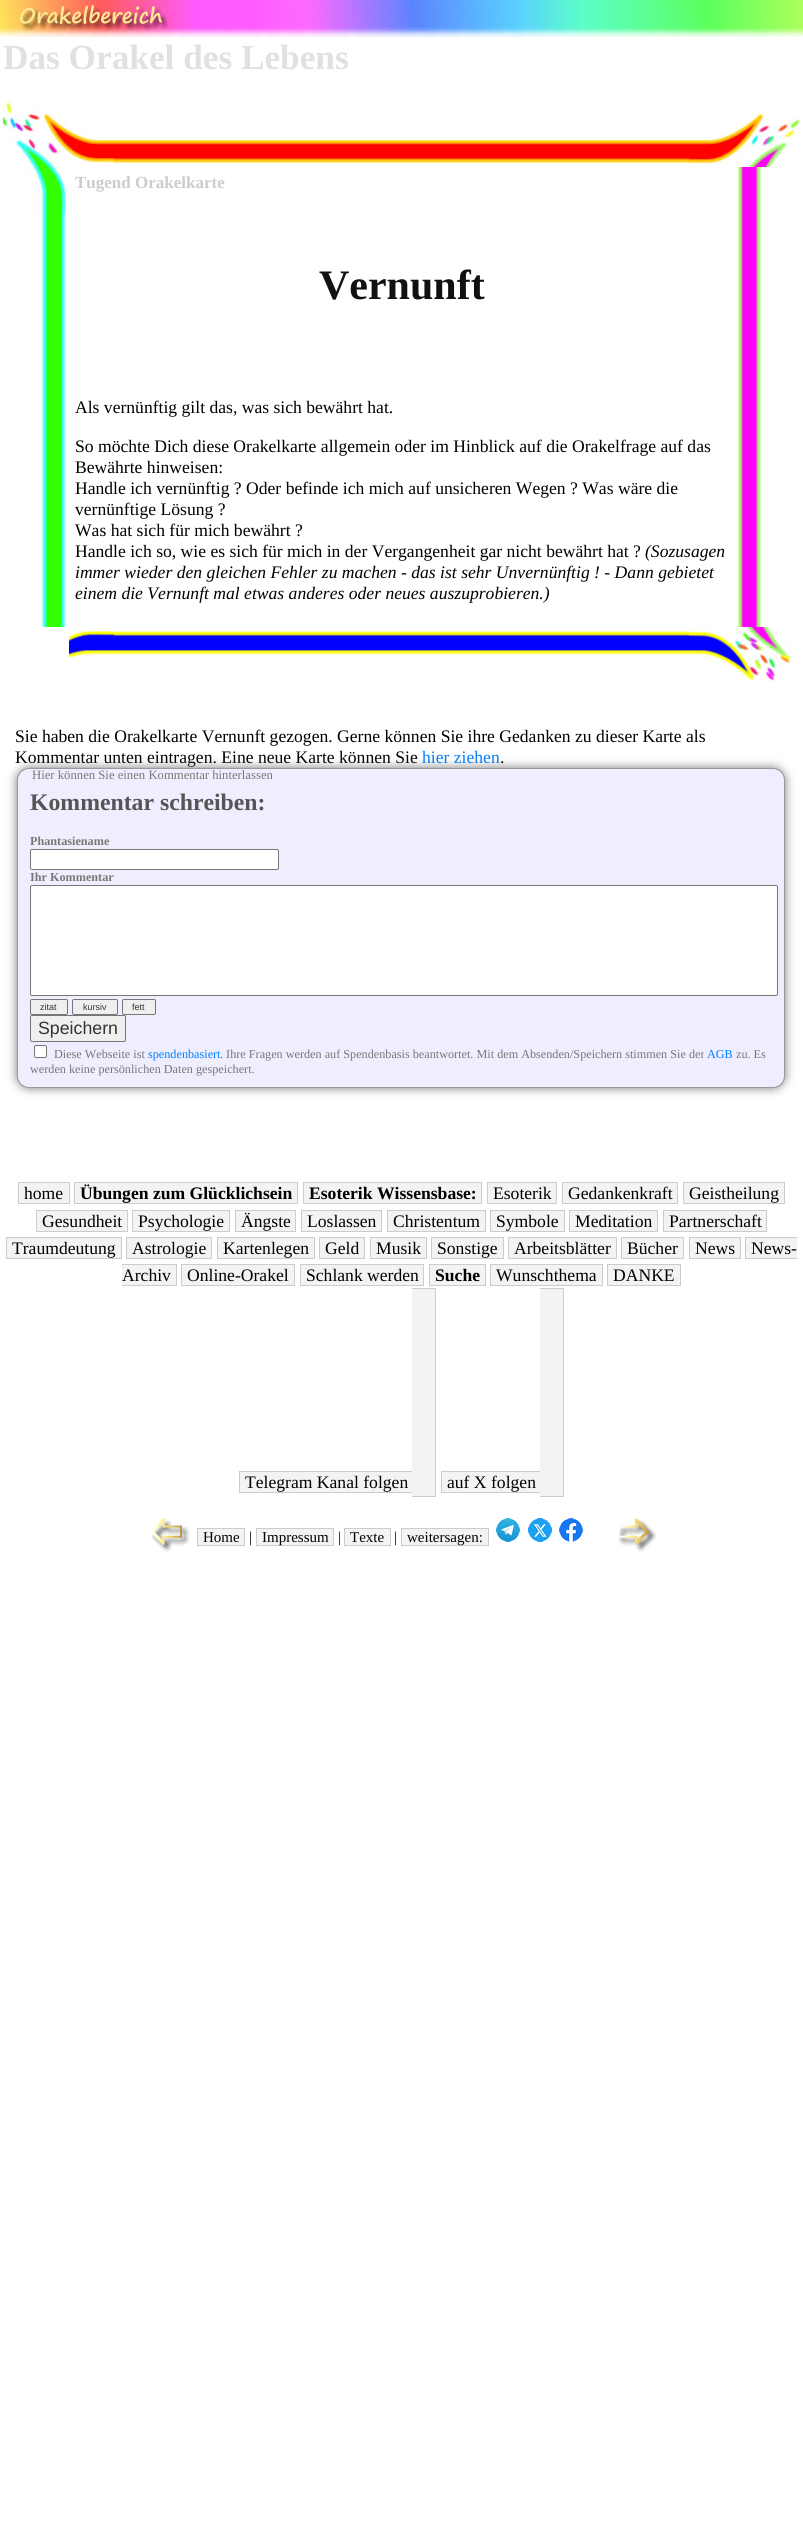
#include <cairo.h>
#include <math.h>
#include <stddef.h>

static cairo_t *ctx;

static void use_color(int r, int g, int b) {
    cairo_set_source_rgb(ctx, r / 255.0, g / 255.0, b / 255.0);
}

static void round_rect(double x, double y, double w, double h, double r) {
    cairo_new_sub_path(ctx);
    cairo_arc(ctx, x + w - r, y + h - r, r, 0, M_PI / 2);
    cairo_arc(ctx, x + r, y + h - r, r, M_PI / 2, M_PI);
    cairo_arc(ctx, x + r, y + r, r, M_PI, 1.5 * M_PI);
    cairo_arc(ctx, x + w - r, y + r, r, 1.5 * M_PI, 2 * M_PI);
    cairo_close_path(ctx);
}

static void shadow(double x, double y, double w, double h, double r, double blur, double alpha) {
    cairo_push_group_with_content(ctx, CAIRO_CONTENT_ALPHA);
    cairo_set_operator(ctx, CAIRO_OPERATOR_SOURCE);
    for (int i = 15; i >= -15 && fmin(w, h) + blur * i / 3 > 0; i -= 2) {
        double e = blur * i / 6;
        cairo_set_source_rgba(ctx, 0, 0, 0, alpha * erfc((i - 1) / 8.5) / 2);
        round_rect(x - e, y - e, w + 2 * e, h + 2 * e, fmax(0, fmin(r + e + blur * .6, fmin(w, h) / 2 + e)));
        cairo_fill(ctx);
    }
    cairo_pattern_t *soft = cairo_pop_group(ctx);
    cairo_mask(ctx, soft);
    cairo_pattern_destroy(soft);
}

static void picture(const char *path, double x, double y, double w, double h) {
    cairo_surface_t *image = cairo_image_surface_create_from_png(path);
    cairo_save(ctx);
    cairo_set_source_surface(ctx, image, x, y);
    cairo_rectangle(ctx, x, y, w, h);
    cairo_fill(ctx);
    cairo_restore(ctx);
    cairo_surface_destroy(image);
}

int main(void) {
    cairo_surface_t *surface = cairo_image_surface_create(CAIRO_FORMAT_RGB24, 803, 2527);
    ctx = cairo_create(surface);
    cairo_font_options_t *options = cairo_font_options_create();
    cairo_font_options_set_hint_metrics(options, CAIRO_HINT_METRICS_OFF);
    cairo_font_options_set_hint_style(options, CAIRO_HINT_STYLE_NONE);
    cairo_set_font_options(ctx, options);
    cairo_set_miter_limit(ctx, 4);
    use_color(255, 255, 255);
    cairo_paint(ctx);
    picture("img1.png", 0, 0, 803, 37);
    cairo_select_font_face(ctx, "Liberation Serif", CAIRO_FONT_SLANT_NORMAL, CAIRO_FONT_WEIGHT_BOLD);
    cairo_set_font_size(ctx, 35.25);
    use_color(225, 225, 225);
    cairo_move_to(ctx, 3, 69);
    cairo_show_text(ctx, "Das Orakel des Lebens");
    picture("img2.png", 3, 101, 66, 66);
    picture("img3.png", 114, 136, 272, 27);
    picture("img4.png", 69, 125, 45, 40);
    picture("img5.png", 386, 136, 31, 27);
    picture("img3.png", 417, 136, 272, 27);
    picture("img6.png", 689, 125, 45, 40);
    picture("img7.png", 734, 109, 66, 58);
    picture("img8.png", 37, 212, 29, 142);
    picture("img9.png", 27, 167, 40, 45);
    cairo_set_font_size(ctx, 17);
    use_color(204, 204, 204);
    cairo_move_to(ctx, 75, 188);
    cairo_show_text(ctx, "Tugend Orakelkarte");
    cairo_set_font_size(ctx, 42);
    use_color(17, 17, 17);
    cairo_move_to(ctx, 319, 299);
    cairo_show_text(ctx, "Vernunft");
    cairo_select_font_face(ctx, "Liberation Serif", CAIRO_FONT_SLANT_NORMAL, CAIRO_FONT_WEIGHT_NORMAL);
    cairo_set_font_size(ctx, 17.6);
    use_color(0, 0, 0);
    cairo_move_to(ctx, 75, 413);
    cairo_show_text(ctx, "Als vernünftig gilt das, was sich bewährt hat.");
    cairo_move_to(ctx, 75, 452);
    cairo_show_text(ctx, "So möchte Dich diese Orakelkarte allgemein oder im Hinblick auf die Orakelfrage auf das");
    cairo_move_to(ctx, 75, 473);
    cairo_show_text(ctx, "Bewährte hinweisen:");
    cairo_move_to(ctx, 75, 494);
    cairo_show_text(ctx, "Handle ich vernünftig ? Oder befinde ich mich auf unsicheren Wegen ? Was wäre die");
    cairo_move_to(ctx, 75, 515);
    cairo_show_text(ctx, "vernünftige Lösung ?");
    cairo_move_to(ctx, 75, 536);
    cairo_show_text(ctx, "Was hat sich für mich bewährt ?");
    cairo_move_to(ctx, 75, 557);
    cairo_show_text(ctx, "Handle ich so, wie es sich für mich in der Vergangenheit gar nicht bewährt hat ?");
    cairo_select_font_face(ctx, "Liberation Serif", CAIRO_FONT_SLANT_ITALIC, CAIRO_FONT_WEIGHT_NORMAL);
    cairo_move_to(ctx, 645, 557);
    cairo_show_text(ctx, "(Sozusagen");
    cairo_move_to(ctx, 75, 578);
    cairo_show_text(ctx, "immer wieder den gleichen Fehler zu machen - das ist sehr Unvernünftig ! - Dann gebietet");
    cairo_move_to(ctx, 75, 599);
    cairo_show_text(ctx, "einem die Vernunft mal etwas anderes oder neues auszuprobieren.)");
    picture("img10.png", 738, 167, 24, 187);
    picture("img11.png", 37, 354, 29, 87);
    picture("img12.png", 738, 354, 24, 87);
    picture("img13.png", 37, 441, 29, 186);
    picture("img14.png", 738, 441, 24, 186);
    picture("img15.png", 114, 631, 272, 24);
    picture("img16.png", 69, 627, 45, 32);
    picture("img17.png", 386, 631, 31, 24);
    picture("img15.png", 417, 631, 272, 24);
    picture("img18.png", 689, 627, 45, 40);
    picture("img19.png", 734, 627, 64, 56);
    cairo_select_font_face(ctx, "Liberation Serif", CAIRO_FONT_SLANT_NORMAL, CAIRO_FONT_WEIGHT_NORMAL);
    cairo_move_to(ctx, 15, 742);
    cairo_show_text(ctx, "Sie haben die Orakelkarte Vernunft gezogen. Gerne können Sie ihre Gedanken zu dieser Karte als");
    cairo_move_to(ctx, 15, 763);
    cairo_show_text(ctx, "Kommentar unten eintragen. Eine neue Karte können Sie");
    use_color(0, 128, 255);
    cairo_move_to(ctx, 422, 763);
    cairo_show_text(ctx, "hier ziehen");
    use_color(0, 0, 0);
    cairo_move_to(ctx, 500, 763);
    cairo_show_text(ctx, ".");
    use_color(119, 119, 119);
    shadow(17, 768, 768, 320, 12, 5, 1);
    use_color(238, 238, 255);
    round_rect(17.5, 768.5, 767, 319, 11.5);
    cairo_fill_preserve(ctx);
    use_color(153, 153, 153);
    cairo_set_line_width(ctx, 1);
    cairo_stroke(ctx);
    cairo_set_font_size(ctx, 12.7);
    use_color(119, 119, 119);
    cairo_move_to(ctx, 32, 779);
    cairo_show_text(ctx, "Hier können Sie einen Kommentar hinterlassen");
    cairo_select_font_face(ctx, "Liberation Serif", CAIRO_FONT_SLANT_NORMAL, CAIRO_FONT_WEIGHT_BOLD);
    cairo_set_font_size(ctx, 23.75);
    use_color(85, 85, 85);
    cairo_move_to(ctx, 30, 810);
    cairo_show_text(ctx, "Kommentar schreiben:");
    cairo_set_font_size(ctx, 12.2);
    use_color(119, 119, 119);
    cairo_move_to(ctx, 30, 845);
    cairo_show_text(ctx, "Phantasiename");
    use_color(255, 255, 255);
    round_rect(30.5, 849.5, 248, 20, 1.5);
    cairo_fill_preserve(ctx);
    use_color(118, 118, 118);
    cairo_stroke(ctx);
    use_color(119, 119, 119);
    cairo_move_to(ctx, 30, 881);
    cairo_show_text(ctx, "Ihr Kommentar");
    use_color(255, 255, 255);
    round_rect(30.5, 885.5, 747, 110, 1.5);
    cairo_fill_preserve(ctx);
    use_color(118, 118, 118);
    cairo_stroke(ctx);
    use_color(239, 239, 239);
    round_rect(30.5, 999.5, 37, 15, 1.5);
    cairo_fill_preserve(ctx);
    use_color(118, 118, 118);
    cairo_stroke(ctx);
    cairo_select_font_face(ctx, "Liberation Sans", CAIRO_FONT_SLANT_NORMAL, CAIRO_FONT_WEIGHT_NORMAL);
    cairo_set_font_size(ctx, 9);
    use_color(51, 51, 51);
    cairo_move_to(ctx, 40, 1010);
    cairo_show_text(ctx, "zitat");
    use_color(239, 239, 239);
    round_rect(72.5, 999.5, 45, 15, 1.5);
    cairo_fill_preserve(ctx);
    use_color(118, 118, 118);
    cairo_stroke(ctx);
    use_color(51, 51, 51);
    cairo_move_to(ctx, 83, 1010);
    cairo_show_text(ctx, "kursiv");
    use_color(239, 239, 239);
    round_rect(122.5, 999.5, 33, 15, 1.5);
    cairo_fill_preserve(ctx);
    use_color(118, 118, 118);
    cairo_stroke(ctx);
    use_color(51, 51, 51);
    cairo_move_to(ctx, 132, 1010);
    cairo_show_text(ctx, "fett");
    use_color(239, 239, 239);
    round_rect(30.5, 1015.5, 95, 26, 1.5);
    cairo_fill_preserve(ctx);
    use_color(118, 118, 118);
    cairo_stroke(ctx);
    cairo_set_font_size(ctx, 17.75);
    use_color(51, 51, 51);
    cairo_move_to(ctx, 38, 1034);
    cairo_show_text(ctx, "Speichern");
    use_color(255, 255, 255);
    round_rect(34.5, 1045.5, 12, 12, 1.5);
    cairo_fill_preserve(ctx);
    use_color(118, 118, 118);
    cairo_stroke(ctx);
    cairo_select_font_face(ctx, "Liberation Serif", CAIRO_FONT_SLANT_NORMAL, CAIRO_FONT_WEIGHT_NORMAL);
    cairo_set_font_size(ctx, 12.2);
    use_color(119, 119, 119);
    cairo_move_to(ctx, 54, 1058);
    cairo_show_text(ctx, "Diese Webseite ist");
    use_color(0, 128, 255);
    cairo_move_to(ctx, 148, 1058);
    cairo_show_text(ctx, "spendenbasiert");
    use_color(119, 119, 119);
    cairo_move_to(ctx, 220, 1058);
    cairo_show_text(ctx, ". Ihre Fragen werden auf Spendenbasis beantwortet. Mit dem Absenden/Speichern stimmen Sie der");
    use_color(0, 128, 255);
    cairo_move_to(ctx, 707, 1058);
    cairo_show_text(ctx, "AGB");
    use_color(119, 119, 119);
    cairo_move_to(ctx, 736, 1058);
    cairo_show_text(ctx, "zu. Es");
    cairo_move_to(ctx, 30, 1073);
    cairo_show_text(ctx, "werden keine persönlichen Daten gespeichert.");
    use_color(243, 243, 243);
    cairo_rectangle(ctx, 18.5, 1182.5, 51, 21);
    cairo_fill_preserve(ctx);
    use_color(204, 204, 204);
    cairo_stroke(ctx);
    cairo_set_font_size(ctx, 17.6);
    use_color(0, 0, 0);
    cairo_move_to(ctx, 24, 1199);
    cairo_show_text(ctx, "home");
    use_color(243, 243, 243);
    cairo_rectangle(ctx, 74.5, 1182.5, 223, 21);
    cairo_fill_preserve(ctx);
    use_color(204, 204, 204);
    cairo_stroke(ctx);
    cairo_select_font_face(ctx, "Liberation Serif", CAIRO_FONT_SLANT_NORMAL, CAIRO_FONT_WEIGHT_BOLD);
    use_color(0, 0, 0);
    cairo_move_to(ctx, 80, 1199);
    cairo_show_text(ctx, "Übungen zum Glücklichsein");
    use_color(243, 243, 243);
    cairo_rectangle(ctx, 303.5, 1182.5, 178, 21);
    cairo_fill_preserve(ctx);
    use_color(204, 204, 204);
    cairo_stroke(ctx);
    use_color(0, 0, 0);
    cairo_move_to(ctx, 309, 1199);
    cairo_show_text(ctx, "Esoterik Wissensbase:");
    use_color(243, 243, 243);
    cairo_rectangle(ctx, 487.5, 1182.5, 69, 21);
    cairo_fill_preserve(ctx);
    use_color(204, 204, 204);
    cairo_stroke(ctx);
    cairo_select_font_face(ctx, "Liberation Serif", CAIRO_FONT_SLANT_NORMAL, CAIRO_FONT_WEIGHT_NORMAL);
    use_color(0, 0, 0);
    cairo_move_to(ctx, 493, 1199);
    cairo_show_text(ctx, "Esoterik");
    use_color(243, 243, 243);
    cairo_rectangle(ctx, 562.5, 1182.5, 115, 21);
    cairo_fill_preserve(ctx);
    use_color(204, 204, 204);
    cairo_stroke(ctx);
    use_color(0, 0, 0);
    cairo_move_to(ctx, 568, 1199);
    cairo_show_text(ctx, "Gedankenkraft");
    use_color(243, 243, 243);
    cairo_rectangle(ctx, 683.5, 1182.5, 101, 21);
    cairo_fill_preserve(ctx);
    use_color(204, 204, 204);
    cairo_stroke(ctx);
    use_color(0, 0, 0);
    cairo_move_to(ctx, 689, 1199);
    cairo_show_text(ctx, "Geistheilung");
    use_color(243, 243, 243);
    cairo_rectangle(ctx, 36.5, 1210.5, 91, 21);
    cairo_fill_preserve(ctx);
    use_color(204, 204, 204);
    cairo_stroke(ctx);
    use_color(0, 0, 0);
    cairo_move_to(ctx, 42, 1227);
    cairo_show_text(ctx, "Gesundheit");
    use_color(243, 243, 243);
    cairo_rectangle(ctx, 132.5, 1210.5, 97, 21);
    cairo_fill_preserve(ctx);
    use_color(204, 204, 204);
    cairo_stroke(ctx);
    use_color(0, 0, 0);
    cairo_move_to(ctx, 138, 1227);
    cairo_show_text(ctx, "Psychologie");
    use_color(243, 243, 243);
    cairo_rectangle(ctx, 235.5, 1210.5, 60, 21);
    cairo_fill_preserve(ctx);
    use_color(204, 204, 204);
    cairo_stroke(ctx);
    use_color(0, 0, 0);
    cairo_move_to(ctx, 241, 1227);
    cairo_show_text(ctx, "Ängste");
    use_color(243, 243, 243);
    cairo_rectangle(ctx, 301.5, 1210.5, 80, 21);
    cairo_fill_preserve(ctx);
    use_color(204, 204, 204);
    cairo_stroke(ctx);
    use_color(0, 0, 0);
    cairo_move_to(ctx, 307, 1227);
    cairo_show_text(ctx, "Loslassen");
    use_color(243, 243, 243);
    cairo_rectangle(ctx, 387.5, 1210.5, 98, 21);
    cairo_fill_preserve(ctx);
    use_color(204, 204, 204);
    cairo_stroke(ctx);
    use_color(0, 0, 0);
    cairo_move_to(ctx, 393, 1227);
    cairo_show_text(ctx, "Christentum");
    use_color(243, 243, 243);
    cairo_rectangle(ctx, 490.5, 1210.5, 74, 21);
    cairo_fill_preserve(ctx);
    use_color(204, 204, 204);
    cairo_stroke(ctx);
    use_color(0, 0, 0);
    cairo_move_to(ctx, 496, 1227);
    cairo_show_text(ctx, "Symbole");
    use_color(243, 243, 243);
    cairo_rectangle(ctx, 569.5, 1210.5, 88, 21);
    cairo_fill_preserve(ctx);
    use_color(204, 204, 204);
    cairo_stroke(ctx);
    use_color(0, 0, 0);
    cairo_move_to(ctx, 575, 1227);
    cairo_show_text(ctx, "Meditation");
    use_color(243, 243, 243);
    cairo_rectangle(ctx, 663.5, 1210.5, 103, 21);
    cairo_fill_preserve(ctx);
    use_color(204, 204, 204);
    cairo_stroke(ctx);
    use_color(0, 0, 0);
    cairo_move_to(ctx, 669, 1227);
    cairo_show_text(ctx, "Partnerschaft");
    use_color(243, 243, 243);
    cairo_rectangle(ctx, 6.5, 1237.5, 115, 21);
    cairo_fill_preserve(ctx);
    use_color(204, 204, 204);
    cairo_stroke(ctx);
    use_color(0, 0, 0);
    cairo_move_to(ctx, 12, 1254);
    cairo_show_text(ctx, "Traumdeutung");
    use_color(243, 243, 243);
    cairo_rectangle(ctx, 126.5, 1237.5, 85, 21);
    cairo_fill_preserve(ctx);
    use_color(204, 204, 204);
    cairo_stroke(ctx);
    use_color(0, 0, 0);
    cairo_move_to(ctx, 132, 1254);
    cairo_show_text(ctx, "Astrologie");
    use_color(243, 243, 243);
    cairo_rectangle(ctx, 217.5, 1237.5, 97, 21);
    cairo_fill_preserve(ctx);
    use_color(204, 204, 204);
    cairo_stroke(ctx);
    use_color(0, 0, 0);
    cairo_move_to(ctx, 223, 1254);
    cairo_show_text(ctx, "Kartenlegen");
    use_color(243, 243, 243);
    cairo_rectangle(ctx, 319.5, 1237.5, 45, 21);
    cairo_fill_preserve(ctx);
    use_color(204, 204, 204);
    cairo_stroke(ctx);
    use_color(0, 0, 0);
    cairo_move_to(ctx, 325, 1254);
    cairo_show_text(ctx, "Geld");
    use_color(243, 243, 243);
    cairo_rectangle(ctx, 370.5, 1237.5, 56, 21);
    cairo_fill_preserve(ctx);
    use_color(204, 204, 204);
    cairo_stroke(ctx);
    use_color(0, 0, 0);
    cairo_move_to(ctx, 376, 1254);
    cairo_show_text(ctx, "Musik");
    use_color(243, 243, 243);
    cairo_rectangle(ctx, 431.5, 1237.5, 72, 21);
    cairo_fill_preserve(ctx);
    use_color(204, 204, 204);
    cairo_stroke(ctx);
    use_color(0, 0, 0);
    cairo_move_to(ctx, 437, 1254);
    cairo_show_text(ctx, "Sonstige");
    use_color(243, 243, 243);
    cairo_rectangle(ctx, 508.5, 1237.5, 108, 21);
    cairo_fill_preserve(ctx);
    use_color(204, 204, 204);
    cairo_stroke(ctx);
    use_color(0, 0, 0);
    cairo_move_to(ctx, 514, 1254);
    cairo_show_text(ctx, "Arbeitsblätter");
    use_color(243, 243, 243);
    cairo_rectangle(ctx, 621.5, 1237.5, 62, 21);
    cairo_fill_preserve(ctx);
    use_color(204, 204, 204);
    cairo_stroke(ctx);
    use_color(0, 0, 0);
    cairo_move_to(ctx, 627, 1254);
    cairo_show_text(ctx, "Bücher");
    use_color(243, 243, 243);
    cairo_rectangle(ctx, 689.5, 1237.5, 51, 21);
    cairo_fill_preserve(ctx);
    use_color(204, 204, 204);
    cairo_stroke(ctx);
    use_color(0, 0, 0);
    cairo_move_to(ctx, 695, 1254);
    cairo_show_text(ctx, "News");
    use_color(243, 243, 243);
    cairo_rectangle(ctx, 746, 1238, 51, 20);
    cairo_fill(ctx);
    use_color(0, 0, 0);
    cairo_move_to(ctx, 751, 1254);
    cairo_show_text(ctx, "News-");
    use_color(204, 204, 204);
    cairo_rectangle(ctx, 745, 1237, 52, 1);
    cairo_fill(ctx);
    cairo_rectangle(ctx, 745, 1258, 52, 1);
    cairo_fill(ctx);
    cairo_rectangle(ctx, 745, 1237, 1, 22);
    cairo_fill(ctx);
    use_color(243, 243, 243);
    cairo_rectangle(ctx, 122, 1265, 54, 20);
    cairo_fill(ctx);
    use_color(0, 0, 0);
    cairo_move_to(ctx, 122, 1281);
    cairo_show_text(ctx, "Archiv");
    use_color(204, 204, 204);
    cairo_rectangle(ctx, 122, 1264, 55, 1);
    cairo_fill(ctx);
    cairo_rectangle(ctx, 176, 1264, 1, 22);
    cairo_fill(ctx);
    cairo_rectangle(ctx, 122, 1285, 55, 1);
    cairo_fill(ctx);
    use_color(243, 243, 243);
    cairo_rectangle(ctx, 181.5, 1264.5, 113, 21);
    cairo_fill_preserve(ctx);
    use_color(204, 204, 204);
    cairo_stroke(ctx);
    use_color(0, 0, 0);
    cairo_move_to(ctx, 187, 1281);
    cairo_show_text(ctx, "Online-Orakel");
    use_color(243, 243, 243);
    cairo_rectangle(ctx, 300.5, 1264.5, 123, 21);
    cairo_fill_preserve(ctx);
    use_color(204, 204, 204);
    cairo_stroke(ctx);
    use_color(0, 0, 0);
    cairo_move_to(ctx, 306, 1281);
    cairo_show_text(ctx, "Schlank werden");
    use_color(243, 243, 243);
    cairo_rectangle(ctx, 429.5, 1264.5, 56, 21);
    cairo_fill_preserve(ctx);
    use_color(204, 204, 204);
    cairo_stroke(ctx);
    cairo_select_font_face(ctx, "Liberation Serif", CAIRO_FONT_SLANT_NORMAL, CAIRO_FONT_WEIGHT_BOLD);
    use_color(0, 0, 0);
    cairo_move_to(ctx, 435, 1281);
    cairo_show_text(ctx, "Suche");
    use_color(243, 243, 243);
    cairo_rectangle(ctx, 490.5, 1264.5, 112, 21);
    cairo_fill_preserve(ctx);
    use_color(204, 204, 204);
    cairo_stroke(ctx);
    cairo_select_font_face(ctx, "Liberation Serif", CAIRO_FONT_SLANT_NORMAL, CAIRO_FONT_WEIGHT_NORMAL);
    use_color(0, 0, 0);
    cairo_move_to(ctx, 496, 1281);
    cairo_show_text(ctx, "Wunschthema");
    use_color(243, 243, 243);
    cairo_rectangle(ctx, 607.5, 1264.5, 73, 21);
    cairo_fill_preserve(ctx);
    use_color(204, 204, 204);
    cairo_stroke(ctx);
    use_color(0, 0, 0);
    cairo_move_to(ctx, 613, 1281);
    cairo_show_text(ctx, "DANKE");
    use_color(243, 243, 243);
    cairo_rectangle(ctx, 240, 1472, 172, 20);
    cairo_fill(ctx);
    use_color(0, 0, 0);
    cairo_move_to(ctx, 245, 1488);
    cairo_show_text(ctx, "Telegram Kanal folgen");
    use_color(204, 204, 204);
    cairo_rectangle(ctx, 239, 1471, 173, 1);
    cairo_fill(ctx);
    cairo_rectangle(ctx, 239, 1492, 173, 1);
    cairo_fill(ctx);
    cairo_rectangle(ctx, 239, 1471, 1, 22);
    cairo_fill(ctx);
    use_color(243, 243, 243);
    cairo_rectangle(ctx, 412, 1289, 23, 207);
    cairo_fill(ctx);
    use_color(204, 204, 204);
    cairo_rectangle(ctx, 412, 1288, 24, 1);
    cairo_fill(ctx);
    cairo_rectangle(ctx, 435, 1288, 1, 209);
    cairo_fill(ctx);
    cairo_rectangle(ctx, 412, 1496, 24, 1);
    cairo_fill(ctx);
    use_color(243, 243, 243);
    cairo_rectangle(ctx, 442, 1472, 98, 20);
    cairo_fill(ctx);
    use_color(0, 0, 0);
    cairo_move_to(ctx, 447, 1488);
    cairo_show_text(ctx, "auf X folgen");
    use_color(204, 204, 204);
    cairo_rectangle(ctx, 441, 1471, 99, 1);
    cairo_fill(ctx);
    cairo_rectangle(ctx, 441, 1492, 99, 1);
    cairo_fill(ctx);
    cairo_rectangle(ctx, 441, 1471, 1, 22);
    cairo_fill(ctx);
    use_color(243, 243, 243);
    cairo_rectangle(ctx, 540, 1289, 23, 207);
    cairo_fill(ctx);
    use_color(204, 204, 204);
    cairo_rectangle(ctx, 540, 1288, 24, 1);
    cairo_fill(ctx);
    cairo_rectangle(ctx, 563, 1288, 1, 209);
    cairo_fill(ctx);
    cairo_rectangle(ctx, 540, 1496, 24, 1);
    cairo_fill(ctx);
    picture("img20.png", 151, 1518, 39, 34);
    use_color(243, 243, 243);
    cairo_rectangle(ctx, 197.5, 1528.5, 47, 17);
    cairo_fill_preserve(ctx);
    use_color(204, 204, 204);
    cairo_stroke(ctx);
    cairo_set_font_size(ctx, 15);
    use_color(0, 0, 0);
    cairo_move_to(ctx, 203, 1542);
    cairo_show_text(ctx, "Home");
    cairo_move_to(ctx, 249, 1542);
    cairo_show_text(ctx, "|");
    use_color(243, 243, 243);
    cairo_rectangle(ctx, 256.5, 1528.5, 77, 17);
    cairo_fill_preserve(ctx);
    use_color(204, 204, 204);
    cairo_stroke(ctx);
    use_color(0, 0, 0);
    cairo_move_to(ctx, 262, 1542);
    cairo_show_text(ctx, "Impressum");
    cairo_move_to(ctx, 338, 1542);
    cairo_show_text(ctx, "|");
    use_color(243, 243, 243);
    cairo_rectangle(ctx, 344.5, 1528.5, 46, 17);
    cairo_fill_preserve(ctx);
    use_color(204, 204, 204);
    cairo_stroke(ctx);
    use_color(0, 0, 0);
    cairo_move_to(ctx, 350, 1542);
    cairo_show_text(ctx, "Texte");
    cairo_move_to(ctx, 394, 1542);
    cairo_show_text(ctx, "|");
    use_color(243, 243, 243);
    cairo_rectangle(ctx, 401.5, 1528.5, 87, 17);
    cairo_fill_preserve(ctx);
    use_color(204, 204, 204);
    cairo_stroke(ctx);
    use_color(0, 0, 0);
    cairo_move_to(ctx, 407, 1542);
    cairo_show_text(ctx, "weitersagen:");
    picture("img21.png", 496, 1518, 24, 24);
    picture("img22.png", 528, 1518, 24, 24);
    picture("img23.png", 559, 1518, 24, 24);
    picture("img24.png", 618, 1518, 39, 34);
    cairo_surface_write_to_png(surface, "result.png");
    cairo_font_options_destroy(options);
    cairo_destroy(ctx);
    cairo_surface_destroy(surface);
    return 0;
}
